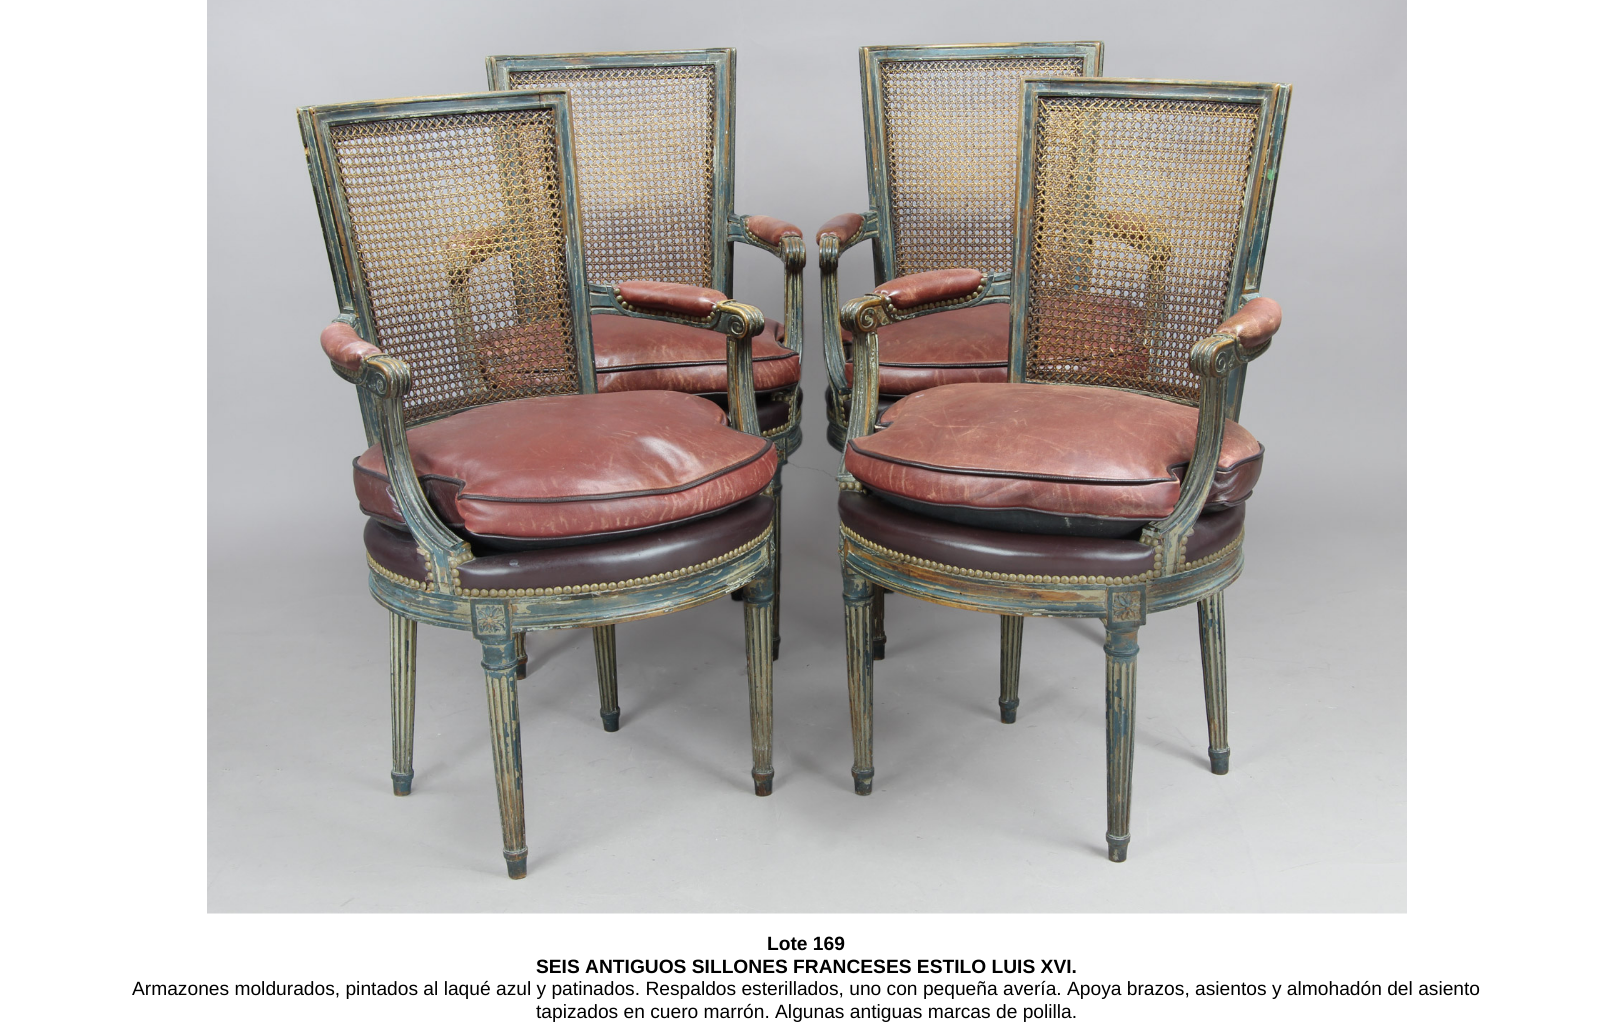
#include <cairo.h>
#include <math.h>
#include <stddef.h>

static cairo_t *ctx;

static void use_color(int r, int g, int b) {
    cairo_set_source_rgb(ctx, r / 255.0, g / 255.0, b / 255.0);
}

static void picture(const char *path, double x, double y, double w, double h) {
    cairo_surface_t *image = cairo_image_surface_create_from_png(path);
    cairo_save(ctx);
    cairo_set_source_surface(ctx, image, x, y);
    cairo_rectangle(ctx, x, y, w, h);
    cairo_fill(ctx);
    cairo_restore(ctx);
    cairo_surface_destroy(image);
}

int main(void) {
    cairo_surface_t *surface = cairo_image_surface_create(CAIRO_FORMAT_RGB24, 1612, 1034);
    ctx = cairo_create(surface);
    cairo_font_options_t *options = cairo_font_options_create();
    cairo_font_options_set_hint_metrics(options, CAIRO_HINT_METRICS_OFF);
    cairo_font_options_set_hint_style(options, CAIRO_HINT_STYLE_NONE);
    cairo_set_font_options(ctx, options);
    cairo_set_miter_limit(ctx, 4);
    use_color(255, 255, 255);
    cairo_paint(ctx);
    picture("img1.png", 207, 0, 1200, 914);
    cairo_select_font_face(ctx, "Liberation Sans", CAIRO_FONT_SLANT_NORMAL, CAIRO_FONT_WEIGHT_BOLD);
    cairo_set_font_size(ctx, 19.2);
    use_color(0, 0, 0);
    cairo_move_to(ctx, 767, 950);
    cairo_show_text(ctx, "Lote 169");
    cairo_move_to(ctx, 536, 973);
    cairo_show_text(ctx, "SEIS ANTIGUOS SILLONES FRANCESES ESTILO LUIS XVI.");
    cairo_select_font_face(ctx, "Liberation Sans", CAIRO_FONT_SLANT_NORMAL, CAIRO_FONT_WEIGHT_NORMAL);
    cairo_move_to(ctx, 132, 995);
    cairo_show_text(ctx, "Armazones moldurados, pintados al laqué azul y patinados. Respaldos esterillados, uno con pequeña avería. Apoya brazos, asientos y almohadón del asiento");
    cairo_move_to(ctx, 536, 1018);
    cairo_show_text(ctx, "tapizados en cuero marrón. Algunas antiguas marcas de polilla.");
    cairo_surface_write_to_png(surface, "result.png");
    cairo_font_options_destroy(options);
    cairo_destroy(ctx);
    cairo_surface_destroy(surface);
    return 0;
}
